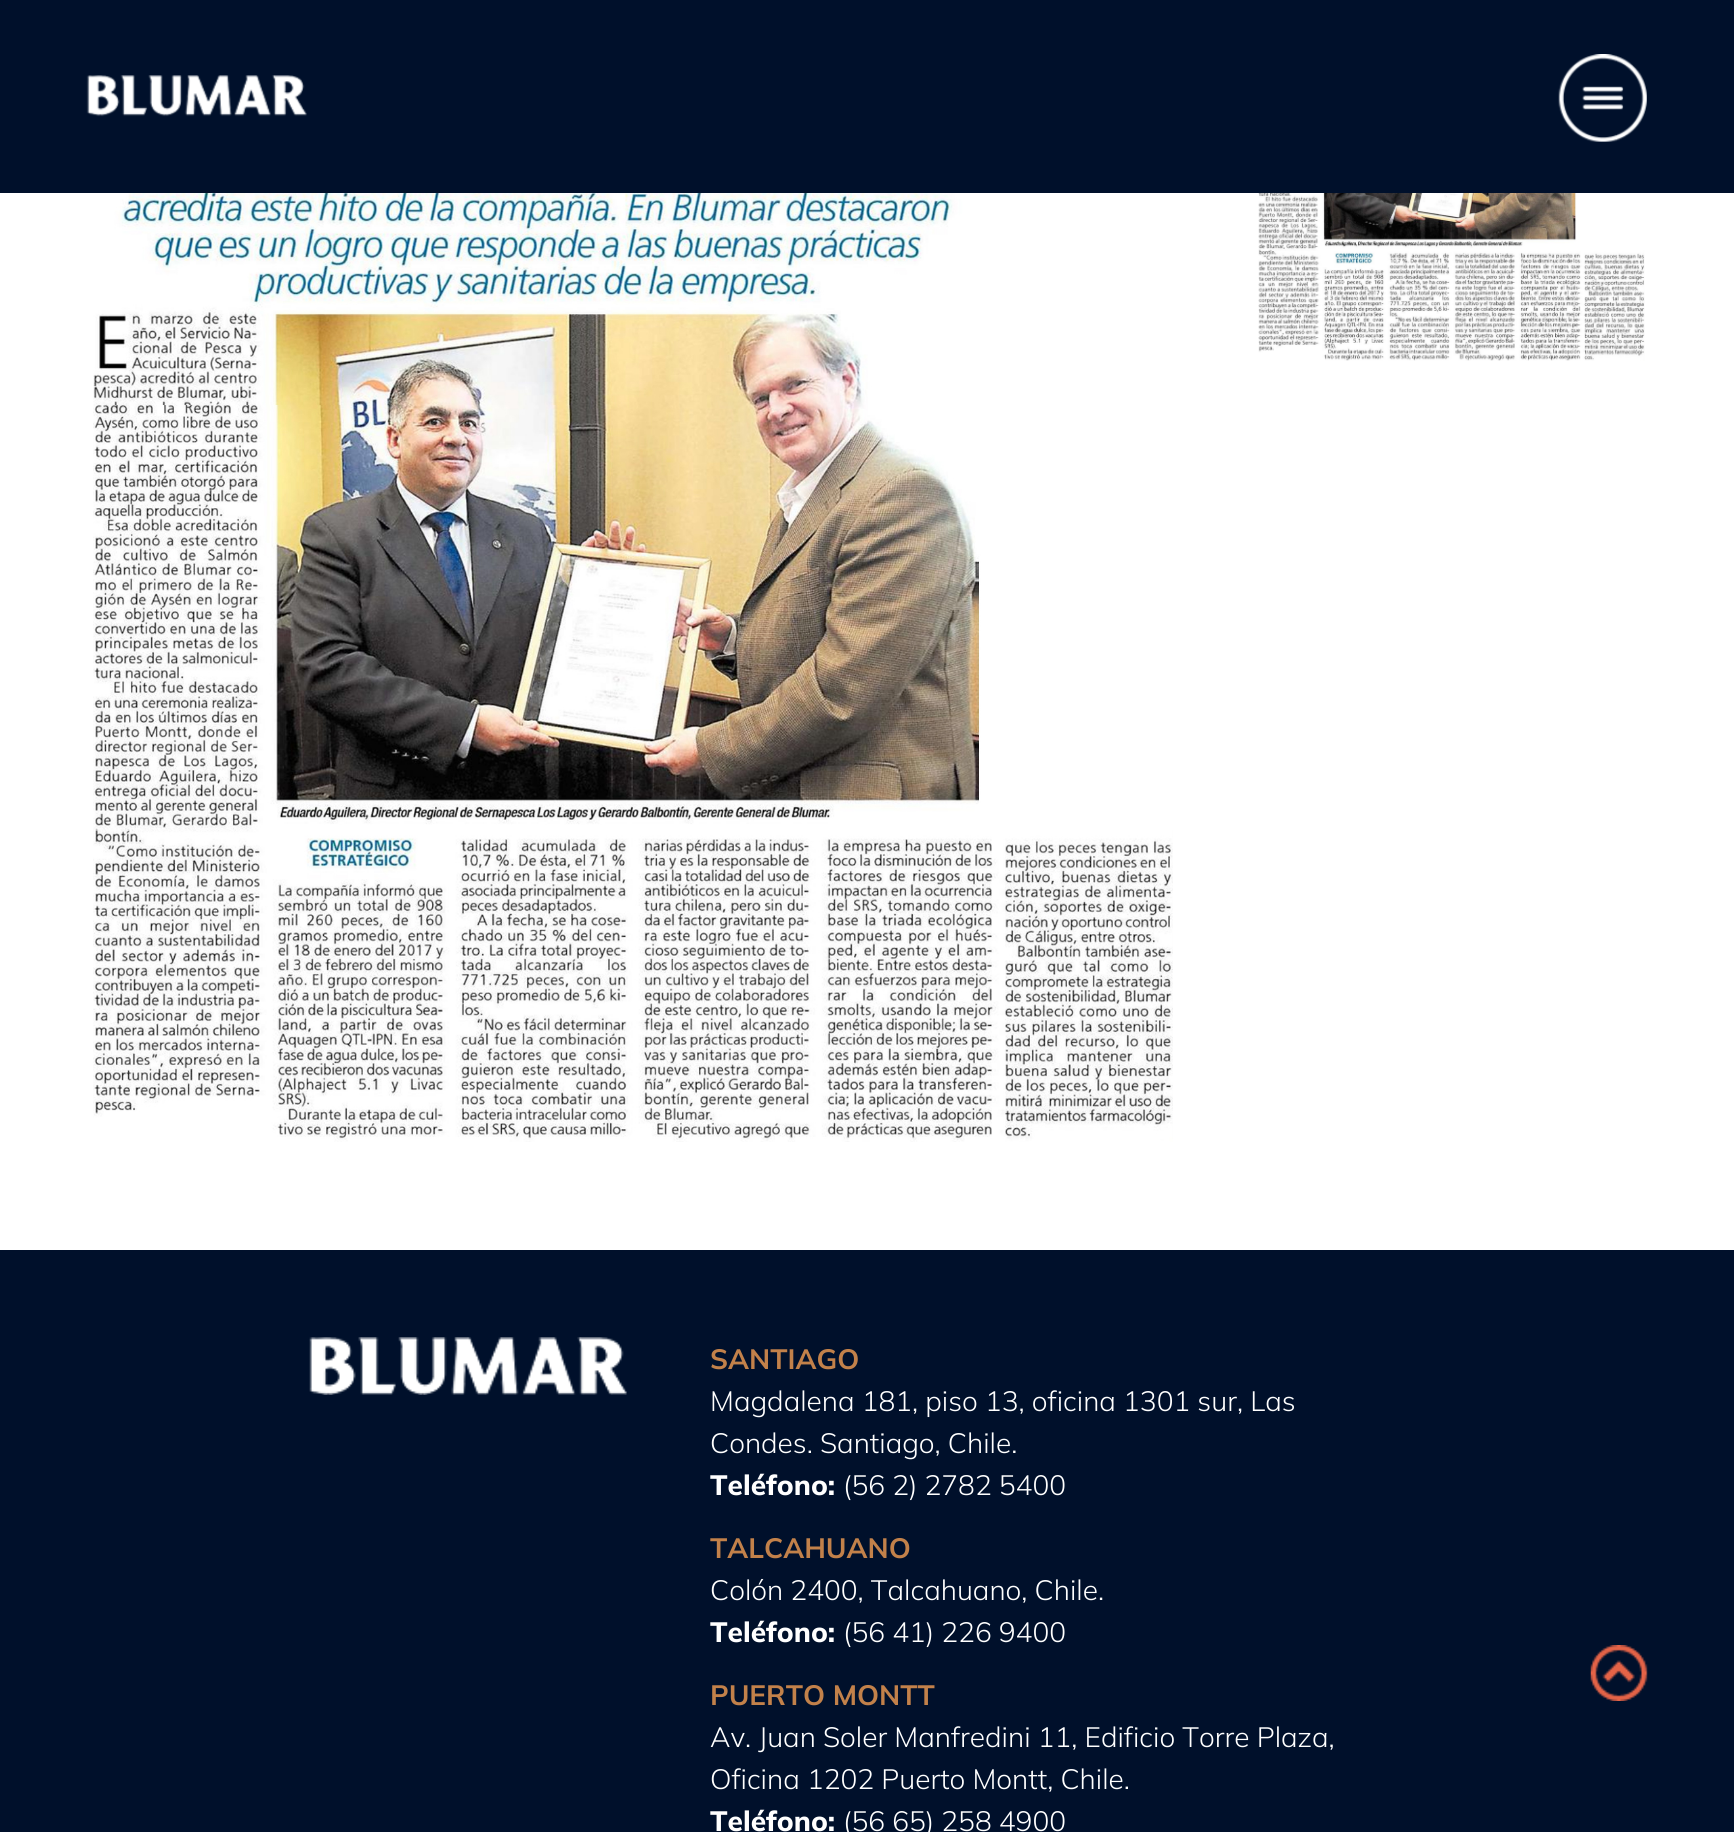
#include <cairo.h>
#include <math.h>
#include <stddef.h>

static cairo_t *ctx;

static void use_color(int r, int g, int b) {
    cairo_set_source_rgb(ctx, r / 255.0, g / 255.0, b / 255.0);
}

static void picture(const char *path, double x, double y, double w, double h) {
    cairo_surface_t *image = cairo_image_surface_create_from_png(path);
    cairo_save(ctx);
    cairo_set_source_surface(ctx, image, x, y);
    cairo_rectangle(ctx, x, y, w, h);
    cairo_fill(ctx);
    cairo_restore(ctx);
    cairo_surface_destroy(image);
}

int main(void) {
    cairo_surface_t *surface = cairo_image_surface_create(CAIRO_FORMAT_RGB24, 1734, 1832);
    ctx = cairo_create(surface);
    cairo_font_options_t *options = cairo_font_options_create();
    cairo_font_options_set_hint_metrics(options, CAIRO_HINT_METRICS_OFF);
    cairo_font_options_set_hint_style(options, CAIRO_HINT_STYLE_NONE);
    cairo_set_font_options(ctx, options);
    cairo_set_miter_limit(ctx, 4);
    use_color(255, 255, 255);
    cairo_paint(ctx);
    use_color(0, 16, 43);
    cairo_rectangle(ctx, 0, 0, 1734, 193);
    cairo_fill(ctx);
    picture("img1.png", 86, 75, 221, 42);
    picture("img2.png", 1558, 54, 89, 88);
    picture("img3.png", 93, 193, 1080, 949);
    picture("img4.png", 1258, 193, 387, 168);
    cairo_rectangle(ctx, 0, 1250, 1734, 582);
    cairo_fill(ctx);
    picture("img5.png", 309, 1337, 318, 58);
    cairo_select_font_face(ctx, "Mulish", CAIRO_FONT_SLANT_NORMAL, CAIRO_FONT_WEIGHT_BOLD);
    cairo_set_font_size(ctx, 28);
    use_color(194, 129, 74);
    cairo_move_to(ctx, 710, 1369);
    cairo_show_text(ctx, "SANTIAGO");
    cairo_select_font_face(ctx, "Mulish Light", CAIRO_FONT_SLANT_NORMAL, CAIRO_FONT_WEIGHT_NORMAL);
    use_color(255, 255, 255);
    cairo_move_to(ctx, 710, 1411);
    cairo_show_text(ctx, "Magdalena 181, piso 13, oficina 1301 sur, Las");
    cairo_move_to(ctx, 710, 1453);
    cairo_show_text(ctx, "Condes. Santiago, Chile.");
    cairo_select_font_face(ctx, "Mulish ExtraBold", CAIRO_FONT_SLANT_NORMAL, CAIRO_FONT_WEIGHT_NORMAL);
    cairo_move_to(ctx, 710, 1495);
    cairo_show_text(ctx, "Teléfono:");
    cairo_select_font_face(ctx, "Mulish Light", CAIRO_FONT_SLANT_NORMAL, CAIRO_FONT_WEIGHT_NORMAL);
    cairo_move_to(ctx, 843, 1495);
    cairo_show_text(ctx, "(56 2) 2782 5400");
    cairo_select_font_face(ctx, "Mulish", CAIRO_FONT_SLANT_NORMAL, CAIRO_FONT_WEIGHT_BOLD);
    use_color(194, 129, 74);
    cairo_move_to(ctx, 710, 1558);
    cairo_show_text(ctx, "TALCAHUANO");
    cairo_select_font_face(ctx, "Mulish Light", CAIRO_FONT_SLANT_NORMAL, CAIRO_FONT_WEIGHT_NORMAL);
    use_color(255, 255, 255);
    cairo_move_to(ctx, 710, 1600);
    cairo_show_text(ctx, "Colón 2400, Talcahuano, Chile.");
    cairo_select_font_face(ctx, "Mulish ExtraBold", CAIRO_FONT_SLANT_NORMAL, CAIRO_FONT_WEIGHT_NORMAL);
    cairo_move_to(ctx, 710, 1642);
    cairo_show_text(ctx, "Teléfono:");
    cairo_select_font_face(ctx, "Mulish Light", CAIRO_FONT_SLANT_NORMAL, CAIRO_FONT_WEIGHT_NORMAL);
    cairo_move_to(ctx, 843, 1642);
    cairo_show_text(ctx, "(56 41) 226 9400");
    cairo_select_font_face(ctx, "Mulish", CAIRO_FONT_SLANT_NORMAL, CAIRO_FONT_WEIGHT_BOLD);
    use_color(194, 129, 74);
    cairo_move_to(ctx, 710, 1705);
    cairo_show_text(ctx, "PUERTO MONTT");
    cairo_select_font_face(ctx, "Mulish Light", CAIRO_FONT_SLANT_NORMAL, CAIRO_FONT_WEIGHT_NORMAL);
    use_color(255, 255, 255);
    cairo_move_to(ctx, 710, 1747);
    cairo_show_text(ctx, "Av. Juan Soler Manfredini 11, Edificio Torre Plaza,");
    cairo_move_to(ctx, 710, 1789);
    cairo_show_text(ctx, "Oficina 1202 Puerto Montt, Chile.");
    cairo_select_font_face(ctx, "Mulish ExtraBold", CAIRO_FONT_SLANT_NORMAL, CAIRO_FONT_WEIGHT_NORMAL);
    cairo_move_to(ctx, 710, 1831);
    cairo_show_text(ctx, "Teléfono:");
    cairo_select_font_face(ctx, "Mulish Light", CAIRO_FONT_SLANT_NORMAL, CAIRO_FONT_WEIGHT_NORMAL);
    cairo_move_to(ctx, 843, 1831);
    cairo_show_text(ctx, "(56 65) 258 4900");
    picture("img6.png", 1590, 1645, 58, 56);
    cairo_surface_write_to_png(surface, "result.png");
    cairo_font_options_destroy(options);
    cairo_destroy(ctx);
    cairo_surface_destroy(surface);
    return 0;
}
